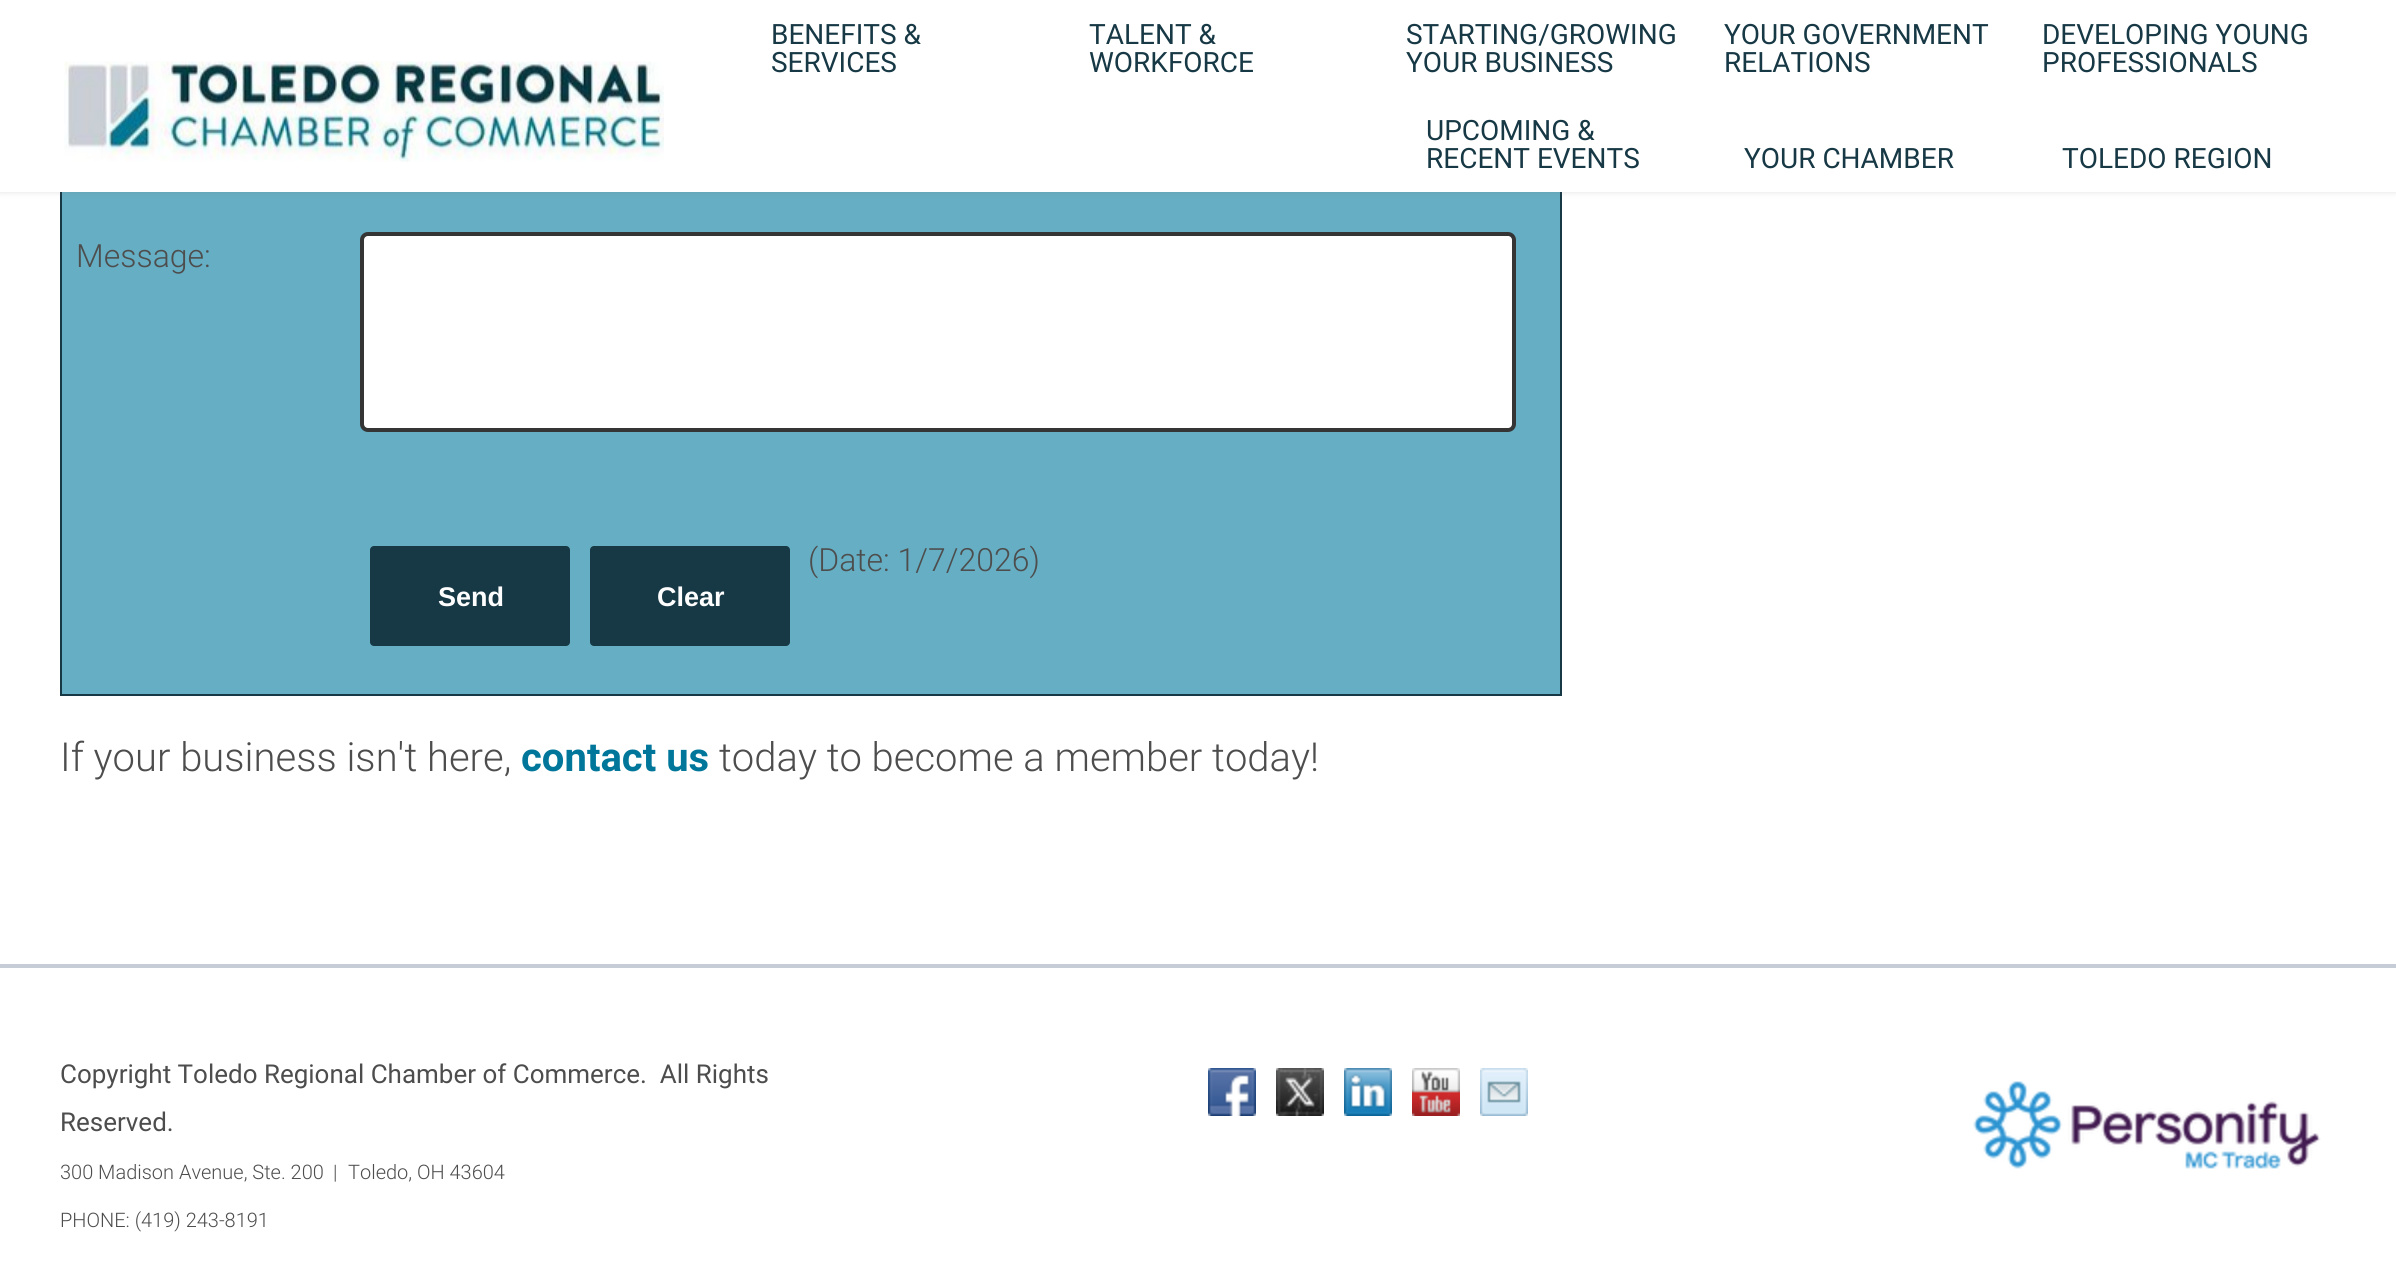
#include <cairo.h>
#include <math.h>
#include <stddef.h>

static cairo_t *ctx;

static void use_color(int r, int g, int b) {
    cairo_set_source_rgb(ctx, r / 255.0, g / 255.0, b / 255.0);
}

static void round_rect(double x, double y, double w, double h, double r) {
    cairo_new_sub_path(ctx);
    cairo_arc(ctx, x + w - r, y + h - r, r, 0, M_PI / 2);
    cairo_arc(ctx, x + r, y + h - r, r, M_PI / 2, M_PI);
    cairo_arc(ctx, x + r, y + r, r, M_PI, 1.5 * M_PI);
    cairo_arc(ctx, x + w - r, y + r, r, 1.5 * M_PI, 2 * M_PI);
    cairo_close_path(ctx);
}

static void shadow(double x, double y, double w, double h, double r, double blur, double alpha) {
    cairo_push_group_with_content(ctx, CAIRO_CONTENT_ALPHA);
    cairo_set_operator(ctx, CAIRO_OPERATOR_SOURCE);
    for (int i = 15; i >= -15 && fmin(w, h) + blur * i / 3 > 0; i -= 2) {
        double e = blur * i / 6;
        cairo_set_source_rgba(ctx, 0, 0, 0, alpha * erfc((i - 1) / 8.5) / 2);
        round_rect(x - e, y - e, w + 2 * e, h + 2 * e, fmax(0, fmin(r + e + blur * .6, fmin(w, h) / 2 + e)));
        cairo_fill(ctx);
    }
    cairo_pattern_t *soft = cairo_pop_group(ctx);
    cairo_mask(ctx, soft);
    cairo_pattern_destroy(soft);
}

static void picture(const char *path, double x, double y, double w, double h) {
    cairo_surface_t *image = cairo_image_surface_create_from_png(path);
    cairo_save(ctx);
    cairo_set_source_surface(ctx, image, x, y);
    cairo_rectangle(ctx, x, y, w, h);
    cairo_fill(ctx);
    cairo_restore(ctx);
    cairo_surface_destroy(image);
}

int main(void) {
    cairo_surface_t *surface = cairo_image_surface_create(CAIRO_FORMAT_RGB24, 2396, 1265);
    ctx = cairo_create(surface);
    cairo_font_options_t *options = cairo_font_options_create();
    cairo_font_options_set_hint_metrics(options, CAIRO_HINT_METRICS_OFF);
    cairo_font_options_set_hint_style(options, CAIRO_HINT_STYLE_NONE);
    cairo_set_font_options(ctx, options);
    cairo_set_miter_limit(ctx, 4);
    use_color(255, 255, 255);
    cairo_paint(ctx);
    use_color(102, 174, 195);
    cairo_rectangle(ctx, 62, 192, 1498, 502);
    cairo_fill(ctx);
    cairo_rectangle(ctx, 61, -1, 1500, 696);
    use_color(23, 56, 69);
    cairo_stroke(ctx);
    use_color(99, 99, 99);
    shadow(0, 0, 2396, 192, 0, 3, 0.2);
    use_color(255, 255, 255);
    cairo_rectangle(ctx, 0, 0, 2396, 192);
    cairo_fill(ctx);
    picture("img1.png", 64, 61, 600, 101);
    cairo_select_font_face(ctx, "Roboto", CAIRO_FONT_SLANT_NORMAL, CAIRO_FONT_WEIGHT_NORMAL);
    cairo_set_font_size(ctx, 28);
    use_color(23, 56, 69);
    cairo_move_to(ctx, 771, 44);
    cairo_show_text(ctx, "BENEFITS &");
    cairo_move_to(ctx, 771, 72);
    cairo_show_text(ctx, "SERVICES");
    cairo_move_to(ctx, 1089, 44);
    cairo_show_text(ctx, "TALENT &");
    cairo_move_to(ctx, 1089, 72);
    cairo_show_text(ctx, "WORKFORCE");
    cairo_move_to(ctx, 1406, 44);
    cairo_show_text(ctx, "STARTING/GROWING");
    cairo_move_to(ctx, 1406, 72);
    cairo_show_text(ctx, "YOUR BUSINESS");
    cairo_move_to(ctx, 1724, 44);
    cairo_show_text(ctx, "YOUR GOVERNMENT");
    cairo_move_to(ctx, 1724, 72);
    cairo_show_text(ctx, "RELATIONS");
    cairo_move_to(ctx, 2042, 44);
    cairo_show_text(ctx, "DEVELOPING YOUNG");
    cairo_move_to(ctx, 2042, 72);
    cairo_show_text(ctx, "PROFESSIONALS");
    cairo_move_to(ctx, 1426, 140);
    cairo_show_text(ctx, "UPCOMING &");
    cairo_move_to(ctx, 1426, 168);
    cairo_show_text(ctx, "RECENT EVENTS");
    cairo_move_to(ctx, 1744, 168);
    cairo_show_text(ctx, "YOUR CHAMBER");
    cairo_move_to(ctx, 2062, 168);
    cairo_show_text(ctx, "TOLEDO REGION");
    cairo_select_font_face(ctx, "Roboto Light", CAIRO_FONT_SLANT_NORMAL, CAIRO_FONT_WEIGHT_NORMAL);
    cairo_set_font_size(ctx, 32);
    use_color(77, 77, 77);
    cairo_move_to(ctx, 76, 267);
    cairo_show_text(ctx, "Message:");
    use_color(255, 255, 255);
    round_rect(362, 234, 1152, 196, 6);
    cairo_fill_preserve(ctx);
    use_color(53, 53, 53);
    cairo_set_line_width(ctx, 4);
    cairo_stroke(ctx);
    use_color(77, 77, 77);
    cairo_move_to(ctx, 808, 571);
    cairo_show_text(ctx, "(Date: 1/7/2026)");
    use_color(23, 56, 69);
    round_rect(370, 546, 200, 100, 4);
    cairo_fill(ctx);
    cairo_select_font_face(ctx, "Liberation Sans", CAIRO_FONT_SLANT_NORMAL, CAIRO_FONT_WEIGHT_BOLD);
    cairo_set_font_size(ctx, 27);
    use_color(255, 255, 255);
    cairo_move_to(ctx, 438, 606);
    cairo_show_text(ctx, "Send");
    use_color(23, 56, 69);
    round_rect(590, 546, 200, 100, 4);
    cairo_fill(ctx);
    use_color(255, 255, 255);
    cairo_move_to(ctx, 657, 606);
    cairo_show_text(ctx, "Clear");
    cairo_select_font_face(ctx, "Roboto Light", CAIRO_FONT_SLANT_NORMAL, CAIRO_FONT_WEIGHT_NORMAL);
    cairo_set_font_size(ctx, 40);
    use_color(77, 77, 77);
    cairo_move_to(ctx, 60, 771);
    cairo_show_text(ctx, "If your business isn't here,");
    cairo_select_font_face(ctx, "Roboto", CAIRO_FONT_SLANT_NORMAL, CAIRO_FONT_WEIGHT_BOLD);
    use_color(0, 119, 154);
    cairo_move_to(ctx, 521, 771);
    cairo_show_text(ctx, "contact us");
    cairo_select_font_face(ctx, "Roboto Light", CAIRO_FONT_SLANT_NORMAL, CAIRO_FONT_WEIGHT_NORMAL);
    use_color(77, 77, 77);
    cairo_move_to(ctx, 719, 771);
    cairo_show_text(ctx, "today to become a member today!");
    use_color(198, 205, 214);
    cairo_rectangle(ctx, 0, 964, 2396, 4);
    cairo_fill(ctx);
    cairo_select_font_face(ctx, "Roboto", CAIRO_FONT_SLANT_NORMAL, CAIRO_FONT_WEIGHT_NORMAL);
    cairo_set_font_size(ctx, 26);
    use_color(77, 77, 77);
    cairo_move_to(ctx, 60, 1083);
    cairo_show_text(ctx, "Copyright Toledo Regional Chamber of Commerce.  All Rights");
    cairo_move_to(ctx, 60, 1131);
    cairo_show_text(ctx, "Reserved.");
    cairo_select_font_face(ctx, "Roboto Light", CAIRO_FONT_SLANT_NORMAL, CAIRO_FONT_WEIGHT_NORMAL);
    cairo_set_font_size(ctx, 20);
    cairo_move_to(ctx, 60, 1179);
    cairo_show_text(ctx, "300 Madison Avenue, Ste. 200");
    cairo_move_to(ctx, 333, 1179);
    cairo_show_text(ctx, "|");
    cairo_move_to(ctx, 348, 1179);
    cairo_show_text(ctx, "Toledo, OH 43604");
    cairo_move_to(ctx, 60, 1227);
    cairo_show_text(ctx, "PHONE: (419) 243-8191");
    picture("img2.png", 1208, 1068, 48, 48);
    picture("img3.png", 1276, 1068, 48, 48);
    picture("img4.png", 1344, 1068, 48, 48);
    picture("img5.png", 1412, 1068, 48, 48);
    picture("img6.png", 1480, 1068, 48, 48);
    picture("img7.png", 1973, 1081, 348, 88);
    cairo_surface_write_to_png(surface, "result.png");
    cairo_font_options_destroy(options);
    cairo_destroy(ctx);
    cairo_surface_destroy(surface);
    return 0;
}
